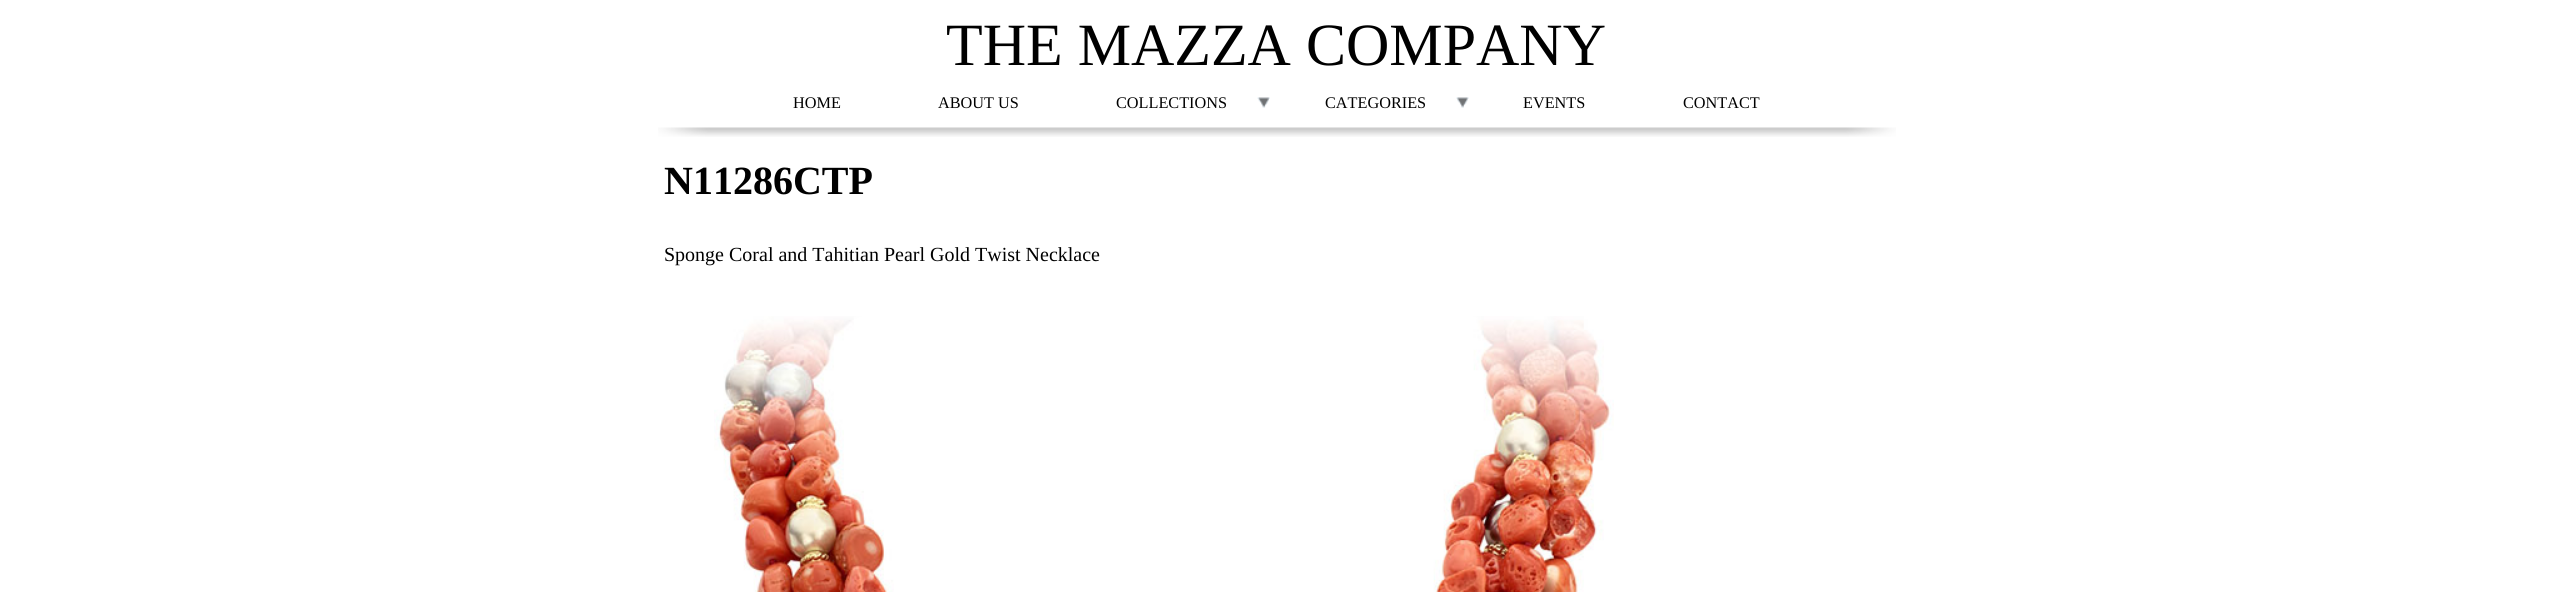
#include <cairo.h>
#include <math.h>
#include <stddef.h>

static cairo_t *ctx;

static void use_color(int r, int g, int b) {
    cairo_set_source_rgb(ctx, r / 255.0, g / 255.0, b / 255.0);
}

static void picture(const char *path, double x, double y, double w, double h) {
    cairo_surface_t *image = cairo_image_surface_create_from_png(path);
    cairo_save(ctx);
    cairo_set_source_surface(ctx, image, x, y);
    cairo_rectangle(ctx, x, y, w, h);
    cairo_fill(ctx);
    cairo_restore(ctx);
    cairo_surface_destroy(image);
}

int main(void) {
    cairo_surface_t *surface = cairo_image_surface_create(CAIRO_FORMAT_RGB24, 2552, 592);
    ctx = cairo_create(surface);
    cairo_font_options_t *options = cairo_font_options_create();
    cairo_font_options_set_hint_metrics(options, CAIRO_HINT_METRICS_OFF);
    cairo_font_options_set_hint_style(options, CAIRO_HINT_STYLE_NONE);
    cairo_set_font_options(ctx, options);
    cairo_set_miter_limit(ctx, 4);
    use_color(255, 255, 255);
    cairo_paint(ctx);
    picture("img1.png", 658, 127, 1238, 10);
    cairo_select_font_face(ctx, "Liberation Serif", CAIRO_FONT_SLANT_NORMAL, CAIRO_FONT_WEIGHT_NORMAL);
    cairo_set_font_size(ctx, 60);
    use_color(0, 0, 0);
    cairo_move_to(ctx, 946, 65);
    cairo_show_text(ctx, "THE MAZZA COMPANY");
    cairo_set_font_size(ctx, 16.25);
    cairo_move_to(ctx, 793, 108);
    cairo_show_text(ctx, "HOME");
    cairo_move_to(ctx, 938, 108);
    cairo_show_text(ctx, "ABOUT US");
    cairo_move_to(ctx, 1116, 108);
    cairo_show_text(ctx, "COLLECTIONS");
    picture("img2.png", 1257, 97, 13, 11);
    cairo_move_to(ctx, 1325, 108);
    cairo_show_text(ctx, "CATEGORIES");
    picture("img3.png", 1456, 97, 13, 11);
    cairo_move_to(ctx, 1523, 108);
    cairo_show_text(ctx, "EVENTS");
    cairo_move_to(ctx, 1683, 108);
    cairo_show_text(ctx, "CONTACT");
    cairo_select_font_face(ctx, "Liberation Serif", CAIRO_FONT_SLANT_NORMAL, CAIRO_FONT_WEIGHT_BOLD);
    cairo_set_font_size(ctx, 40);
    cairo_move_to(ctx, 664, 194);
    cairo_show_text(ctx, "N11286CTP");
    cairo_select_font_face(ctx, "Liberation Serif", CAIRO_FONT_SLANT_NORMAL, CAIRO_FONT_WEIGHT_NORMAL);
    cairo_set_font_size(ctx, 20);
    cairo_move_to(ctx, 664, 261);
    cairo_show_text(ctx, "Sponge Coral and Tahitian Pearl Gold Twist Necklace");
    picture("img4.png", 714, 316, 900, 276);
    cairo_surface_write_to_png(surface, "result.png");
    cairo_font_options_destroy(options);
    cairo_destroy(ctx);
    cairo_surface_destroy(surface);
    return 0;
}
